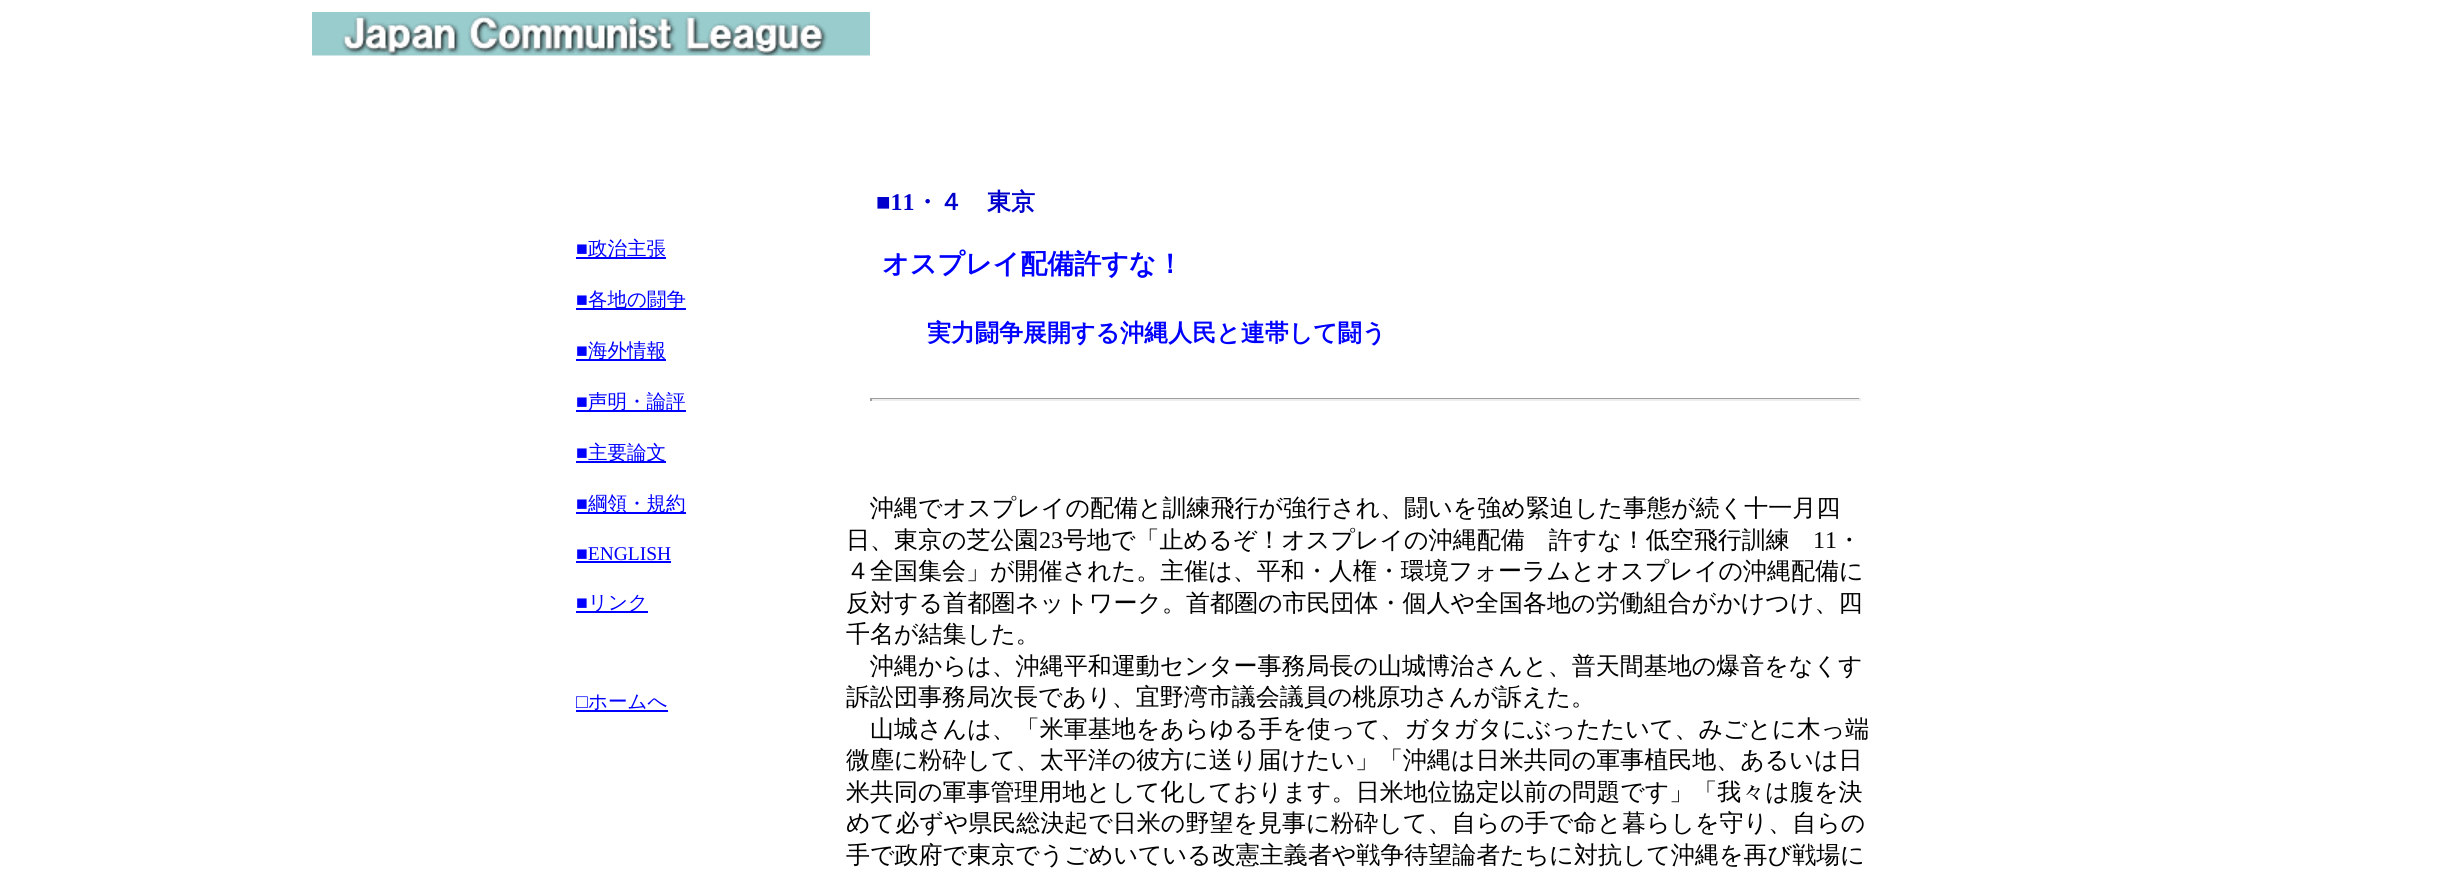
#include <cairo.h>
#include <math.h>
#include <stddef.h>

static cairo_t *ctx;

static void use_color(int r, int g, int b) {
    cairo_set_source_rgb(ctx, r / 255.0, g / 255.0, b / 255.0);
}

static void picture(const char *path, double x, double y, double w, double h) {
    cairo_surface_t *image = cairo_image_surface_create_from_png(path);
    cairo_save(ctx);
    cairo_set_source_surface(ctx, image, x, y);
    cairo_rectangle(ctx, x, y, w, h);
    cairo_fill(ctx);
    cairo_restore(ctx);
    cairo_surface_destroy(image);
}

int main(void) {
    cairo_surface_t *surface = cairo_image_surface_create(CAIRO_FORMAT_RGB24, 2459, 875);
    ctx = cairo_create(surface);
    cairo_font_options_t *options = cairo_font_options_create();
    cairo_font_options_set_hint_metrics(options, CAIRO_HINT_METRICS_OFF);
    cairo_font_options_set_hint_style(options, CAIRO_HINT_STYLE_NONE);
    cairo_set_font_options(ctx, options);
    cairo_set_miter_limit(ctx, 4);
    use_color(255, 255, 255);
    cairo_paint(ctx);
    picture("img1.png", 312, 12, 558, 44);
    cairo_select_font_face(ctx, "Liberation Serif", CAIRO_FONT_SLANT_NORMAL, CAIRO_FONT_WEIGHT_NORMAL);
    cairo_set_font_size(ctx, 19.5);
    use_color(0, 0, 255);
    cairo_move_to(ctx, 576, 255);
    cairo_show_text(ctx, "■");
    cairo_rectangle(ctx, 576, 257, 90, 2);
    cairo_fill(ctx);
    cairo_select_font_face(ctx, "WenQuanYi Zen Hei Medium", CAIRO_FONT_SLANT_NORMAL, CAIRO_FONT_WEIGHT_NORMAL);
    cairo_move_to(ctx, 588, 255);
    cairo_show_text(ctx, "政治主張");
    cairo_select_font_face(ctx, "Liberation Serif", CAIRO_FONT_SLANT_NORMAL, CAIRO_FONT_WEIGHT_NORMAL);
    cairo_move_to(ctx, 576, 306);
    cairo_show_text(ctx, "■");
    cairo_rectangle(ctx, 576, 308, 110, 2);
    cairo_fill(ctx);
    cairo_select_font_face(ctx, "WenQuanYi Zen Hei Medium", CAIRO_FONT_SLANT_NORMAL, CAIRO_FONT_WEIGHT_NORMAL);
    cairo_move_to(ctx, 588, 306);
    cairo_show_text(ctx, "各地の闘争");
    cairo_select_font_face(ctx, "Liberation Serif", CAIRO_FONT_SLANT_NORMAL, CAIRO_FONT_WEIGHT_NORMAL);
    cairo_move_to(ctx, 576, 357);
    cairo_show_text(ctx, "■");
    cairo_rectangle(ctx, 576, 359, 90, 2);
    cairo_fill(ctx);
    cairo_select_font_face(ctx, "WenQuanYi Zen Hei Medium", CAIRO_FONT_SLANT_NORMAL, CAIRO_FONT_WEIGHT_NORMAL);
    cairo_move_to(ctx, 588, 357);
    cairo_show_text(ctx, "海外情報");
    cairo_select_font_face(ctx, "Liberation Serif", CAIRO_FONT_SLANT_NORMAL, CAIRO_FONT_WEIGHT_NORMAL);
    cairo_move_to(ctx, 576, 408);
    cairo_show_text(ctx, "■");
    cairo_rectangle(ctx, 576, 410, 110, 2);
    cairo_fill(ctx);
    cairo_select_font_face(ctx, "WenQuanYi Zen Hei Medium", CAIRO_FONT_SLANT_NORMAL, CAIRO_FONT_WEIGHT_NORMAL);
    cairo_move_to(ctx, 588, 408);
    cairo_show_text(ctx, "声明・論評");
    cairo_select_font_face(ctx, "Liberation Serif", CAIRO_FONT_SLANT_NORMAL, CAIRO_FONT_WEIGHT_NORMAL);
    cairo_move_to(ctx, 576, 459);
    cairo_show_text(ctx, "■");
    cairo_rectangle(ctx, 576, 461, 90, 2);
    cairo_fill(ctx);
    cairo_select_font_face(ctx, "WenQuanYi Zen Hei Medium", CAIRO_FONT_SLANT_NORMAL, CAIRO_FONT_WEIGHT_NORMAL);
    cairo_move_to(ctx, 588, 459);
    cairo_show_text(ctx, "主要論文");
    cairo_select_font_face(ctx, "Liberation Serif", CAIRO_FONT_SLANT_NORMAL, CAIRO_FONT_WEIGHT_NORMAL);
    cairo_move_to(ctx, 576, 510);
    cairo_show_text(ctx, "■");
    cairo_rectangle(ctx, 576, 512, 110, 2);
    cairo_fill(ctx);
    cairo_select_font_face(ctx, "WenQuanYi Zen Hei Medium", CAIRO_FONT_SLANT_NORMAL, CAIRO_FONT_WEIGHT_NORMAL);
    cairo_move_to(ctx, 588, 510);
    cairo_show_text(ctx, "綱領・規約");
    cairo_select_font_face(ctx, "Liberation Serif", CAIRO_FONT_SLANT_NORMAL, CAIRO_FONT_WEIGHT_NORMAL);
    cairo_move_to(ctx, 576, 560);
    cairo_show_text(ctx, "■ENGLISH");
    cairo_rectangle(ctx, 576, 561, 95, 2);
    cairo_fill(ctx);
    cairo_move_to(ctx, 576, 609);
    cairo_show_text(ctx, "■");
    cairo_rectangle(ctx, 576, 611, 72, 2);
    cairo_fill(ctx);
    cairo_select_font_face(ctx, "WenQuanYi Zen Hei Medium", CAIRO_FONT_SLANT_NORMAL, CAIRO_FONT_WEIGHT_NORMAL);
    cairo_move_to(ctx, 588, 609);
    cairo_show_text(ctx, "リンク");
    cairo_select_font_face(ctx, "Liberation Serif", CAIRO_FONT_SLANT_NORMAL, CAIRO_FONT_WEIGHT_NORMAL);
    cairo_move_to(ctx, 576, 708);
    cairo_show_text(ctx, "□");
    cairo_rectangle(ctx, 576, 710, 92, 2);
    cairo_fill(ctx);
    cairo_select_font_face(ctx, "WenQuanYi Zen Hei Medium", CAIRO_FONT_SLANT_NORMAL, CAIRO_FONT_WEIGHT_NORMAL);
    cairo_move_to(ctx, 588, 708);
    cairo_show_text(ctx, "ホームへ");
    cairo_select_font_face(ctx, "Liberation Serif", CAIRO_FONT_SLANT_NORMAL, CAIRO_FONT_WEIGHT_BOLD);
    cairo_set_font_size(ctx, 24);
    use_color(0, 0, 204);
    cairo_move_to(ctx, 876, 210);
    cairo_show_text(ctx, "■11");
    cairo_select_font_face(ctx, "WenQuanYi Zen Hei", CAIRO_FONT_SLANT_NORMAL, CAIRO_FONT_WEIGHT_BOLD);
    cairo_move_to(ctx, 915, 210);
    cairo_show_text(ctx, "・４　東京");
    cairo_set_font_size(ctx, 27);
    use_color(0, 0, 255);
    cairo_move_to(ctx, 882, 273);
    cairo_show_text(ctx, "オスプレイ配備許すな！");
    cairo_set_font_size(ctx, 24);
    cairo_move_to(ctx, 927, 341);
    cairo_show_text(ctx, "実力闘争展開する沖縄人民と連帯して闘う");
    use_color(159, 159, 159);
    cairo_rectangle(ctx, 870, 398, 990, 1);
    cairo_fill(ctx);
    use_color(238, 238, 238);
    cairo_rectangle(ctx, 1859, 398, 2, 3);
    cairo_fill(ctx);
    cairo_rectangle(ctx, 870, 399, 990, 2);
    cairo_fill(ctx);
    use_color(159, 159, 159);
    cairo_rectangle(ctx, 870, 398, 2, 3);
    cairo_fill(ctx);
    cairo_select_font_face(ctx, "WenQuanYi Zen Hei Medium", CAIRO_FONT_SLANT_NORMAL, CAIRO_FONT_WEIGHT_NORMAL);
    use_color(0, 0, 0);
    cairo_move_to(ctx, 870, 516);
    cairo_show_text(ctx, "沖縄でオスプレイの配備と訓練飛行が強行され、闘いを強め緊迫した事態が続く十一月四");
    cairo_move_to(ctx, 846, 548);
    cairo_show_text(ctx, "日、東京の芝公園");
    cairo_select_font_face(ctx, "Liberation Serif", CAIRO_FONT_SLANT_NORMAL, CAIRO_FONT_WEIGHT_NORMAL);
    cairo_move_to(ctx, 1039, 548);
    cairo_show_text(ctx, "23");
    cairo_select_font_face(ctx, "WenQuanYi Zen Hei Medium", CAIRO_FONT_SLANT_NORMAL, CAIRO_FONT_WEIGHT_NORMAL);
    cairo_move_to(ctx, 1063, 548);
    cairo_show_text(ctx, "号地で「止めるぞ！オスプレイの沖縄配備　許すな！低空飛行訓練");
    cairo_select_font_face(ctx, "Liberation Serif", CAIRO_FONT_SLANT_NORMAL, CAIRO_FONT_WEIGHT_NORMAL);
    cairo_move_to(ctx, 1813, 548);
    cairo_show_text(ctx, "11");
    cairo_select_font_face(ctx, "WenQuanYi Zen Hei Medium", CAIRO_FONT_SLANT_NORMAL, CAIRO_FONT_WEIGHT_NORMAL);
    cairo_move_to(ctx, 1837, 548);
    cairo_show_text(ctx, "・");
    cairo_move_to(ctx, 846, 579);
    cairo_show_text(ctx, "４全国集会」が開催された。主催は、平和・人権・環境フォーラムとオスプレイの沖縄配備に");
    cairo_move_to(ctx, 846, 611);
    cairo_show_text(ctx, "反対する首都圏ネットワーク。首都圏の市民団体・個人や全国各地の労働組合がかけつけ、四");
    cairo_move_to(ctx, 846, 642);
    cairo_show_text(ctx, "千名が結集した。");
    cairo_move_to(ctx, 870, 674);
    cairo_show_text(ctx, "沖縄からは、沖縄平和運動センター事務局長の山城博治さんと、普天間基地の爆音をなくす");
    cairo_move_to(ctx, 846, 705);
    cairo_show_text(ctx, "訴訟団事務局次長であり、宜野湾市議会議員の桃原功さんが訴えた。");
    cairo_move_to(ctx, 870, 737);
    cairo_show_text(ctx, "山城さんは、「米軍基地をあらゆる手を使って、ガタガタにぶったたいて、みごとに木っ端");
    cairo_move_to(ctx, 846, 768);
    cairo_show_text(ctx, "微塵に粉砕して、太平洋の彼方に送り届けたい」「沖縄は日米共同の軍事植民地、あるいは日");
    cairo_move_to(ctx, 846, 800);
    cairo_show_text(ctx, "米共同の軍事管理用地として化しております。日米地位協定以前の問題です」「我々は腹を決");
    cairo_move_to(ctx, 846, 831);
    cairo_show_text(ctx, "めて必ずや県民総決起で日米の野望を見事に粉砕して、自らの手で命と暮らしを守り、自らの");
    cairo_move_to(ctx, 846, 863);
    cairo_show_text(ctx, "手で政府で東京でうごめいている改憲主義者や戦争待望論者たちに対抗して沖縄を再び戦場に");
    cairo_surface_write_to_png(surface, "result.png");
    cairo_font_options_destroy(options);
    cairo_destroy(ctx);
    cairo_surface_destroy(surface);
    return 0;
}
